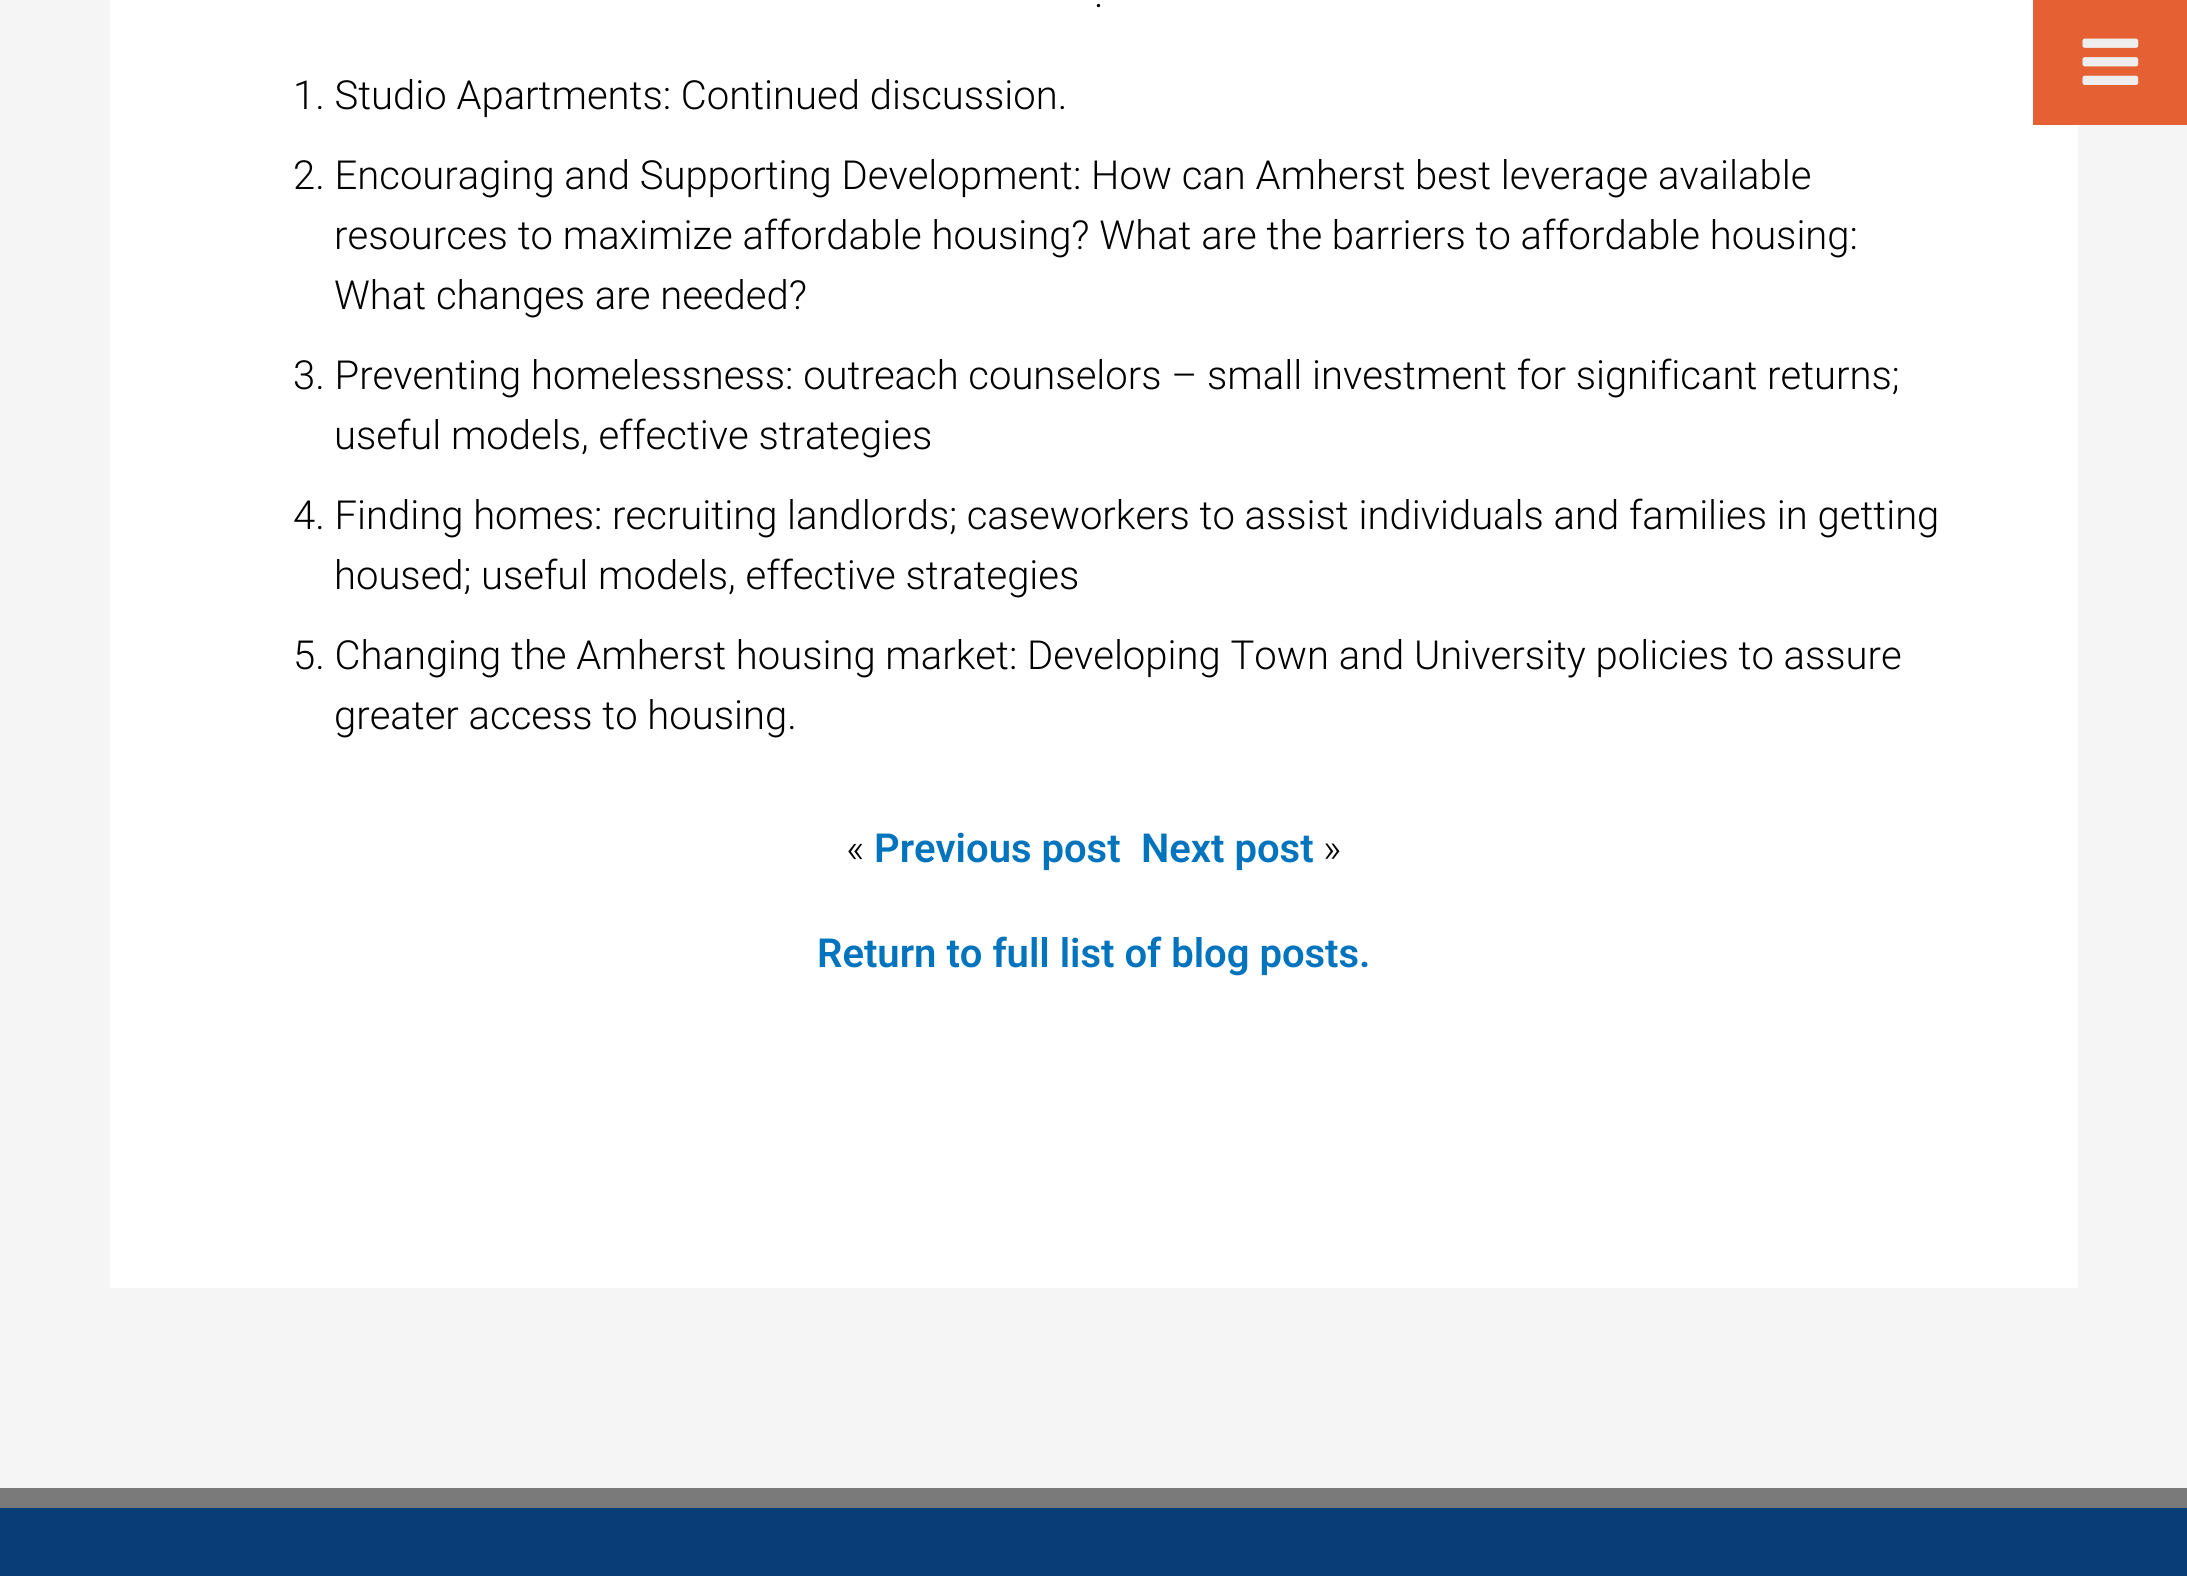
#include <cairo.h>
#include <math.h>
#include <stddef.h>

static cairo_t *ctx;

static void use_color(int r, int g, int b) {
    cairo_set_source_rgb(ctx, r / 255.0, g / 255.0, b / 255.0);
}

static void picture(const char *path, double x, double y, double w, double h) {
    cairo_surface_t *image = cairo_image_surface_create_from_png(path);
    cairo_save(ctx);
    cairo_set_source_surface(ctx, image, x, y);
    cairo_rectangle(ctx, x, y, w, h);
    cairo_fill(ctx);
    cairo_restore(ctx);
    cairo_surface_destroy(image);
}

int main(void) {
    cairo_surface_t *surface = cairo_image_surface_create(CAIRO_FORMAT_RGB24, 2187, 1576);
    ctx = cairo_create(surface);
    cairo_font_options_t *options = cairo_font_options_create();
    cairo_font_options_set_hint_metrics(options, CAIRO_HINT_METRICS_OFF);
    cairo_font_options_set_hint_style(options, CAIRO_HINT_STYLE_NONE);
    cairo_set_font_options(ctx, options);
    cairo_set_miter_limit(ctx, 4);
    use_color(245, 245, 245);
    cairo_paint(ctx);
    use_color(255, 255, 255);
    cairo_rectangle(ctx, 110, 0, 1968, 1288);
    cairo_fill(ctx);
    cairo_select_font_face(ctx, "Roboto Light", CAIRO_FONT_SLANT_NORMAL, CAIRO_FONT_WEIGHT_NORMAL);
    cairo_set_font_size(ctx, 40);
    use_color(0, 0, 0);
    cairo_move_to(ctx, 1094, 7);
    cairo_show_text(ctx, ".");
    cairo_move_to(ctx, 293, 109);
    cairo_show_text(ctx, "1. Studio Apartments: Continued discussion.");
    cairo_move_to(ctx, 293, 189);
    cairo_show_text(ctx, "2. Encouraging and Supporting Development: How can Amherst best leverage available");
    cairo_move_to(ctx, 334, 249);
    cairo_show_text(ctx, "resources to maximize affordable housing? What are the barriers to affordable housing:");
    cairo_move_to(ctx, 334, 309);
    cairo_show_text(ctx, "What changes are needed?");
    cairo_move_to(ctx, 293, 389);
    cairo_show_text(ctx, "3. Preventing homelessness: outreach counselors – small investment for significant returns;");
    cairo_move_to(ctx, 334, 449);
    cairo_show_text(ctx, "useful models, effective strategies");
    cairo_move_to(ctx, 293, 529);
    cairo_show_text(ctx, "4. Finding homes: recruiting landlords; caseworkers to assist individuals and families in getting");
    cairo_move_to(ctx, 334, 589);
    cairo_show_text(ctx, "housed; useful models, effective strategies");
    cairo_move_to(ctx, 293, 669);
    cairo_show_text(ctx, "5. Changing the Amherst housing market: Developing Town and University policies to assure");
    cairo_move_to(ctx, 334, 729);
    cairo_show_text(ctx, "greater access to housing.");
    cairo_move_to(ctx, 846, 862);
    cairo_show_text(ctx, "«");
    cairo_select_font_face(ctx, "Roboto SemiBold", CAIRO_FONT_SLANT_NORMAL, CAIRO_FONT_WEIGHT_NORMAL);
    use_color(2, 116, 190);
    cairo_move_to(ctx, 874, 862);
    cairo_show_text(ctx, "Previous post");
    cairo_move_to(ctx, 1141, 862);
    cairo_show_text(ctx, "Next post");
    cairo_select_font_face(ctx, "Roboto Light", CAIRO_FONT_SLANT_NORMAL, CAIRO_FONT_WEIGHT_NORMAL);
    use_color(0, 0, 0);
    cairo_move_to(ctx, 1323, 862);
    cairo_show_text(ctx, "»");
    cairo_select_font_face(ctx, "Roboto SemiBold", CAIRO_FONT_SLANT_NORMAL, CAIRO_FONT_WEIGHT_NORMAL);
    use_color(2, 116, 190);
    cairo_move_to(ctx, 817, 967);
    cairo_show_text(ctx, "Return to full list of blog posts.");
    use_color(229, 97, 51);
    cairo_rectangle(ctx, 2033, 0, 154, 125);
    cairo_fill(ctx);
    picture("img1.png", 2082, 38, 57, 47);
    use_color(8, 61, 119);
    cairo_rectangle(ctx, 0, 1508, 2187, 68);
    cairo_fill(ctx);
    use_color(122, 122, 122);
    cairo_rectangle(ctx, 0, 1488, 2187, 20);
    cairo_fill(ctx);
    cairo_surface_write_to_png(surface, "result.png");
    cairo_font_options_destroy(options);
    cairo_destroy(ctx);
    cairo_surface_destroy(surface);
    return 0;
}
